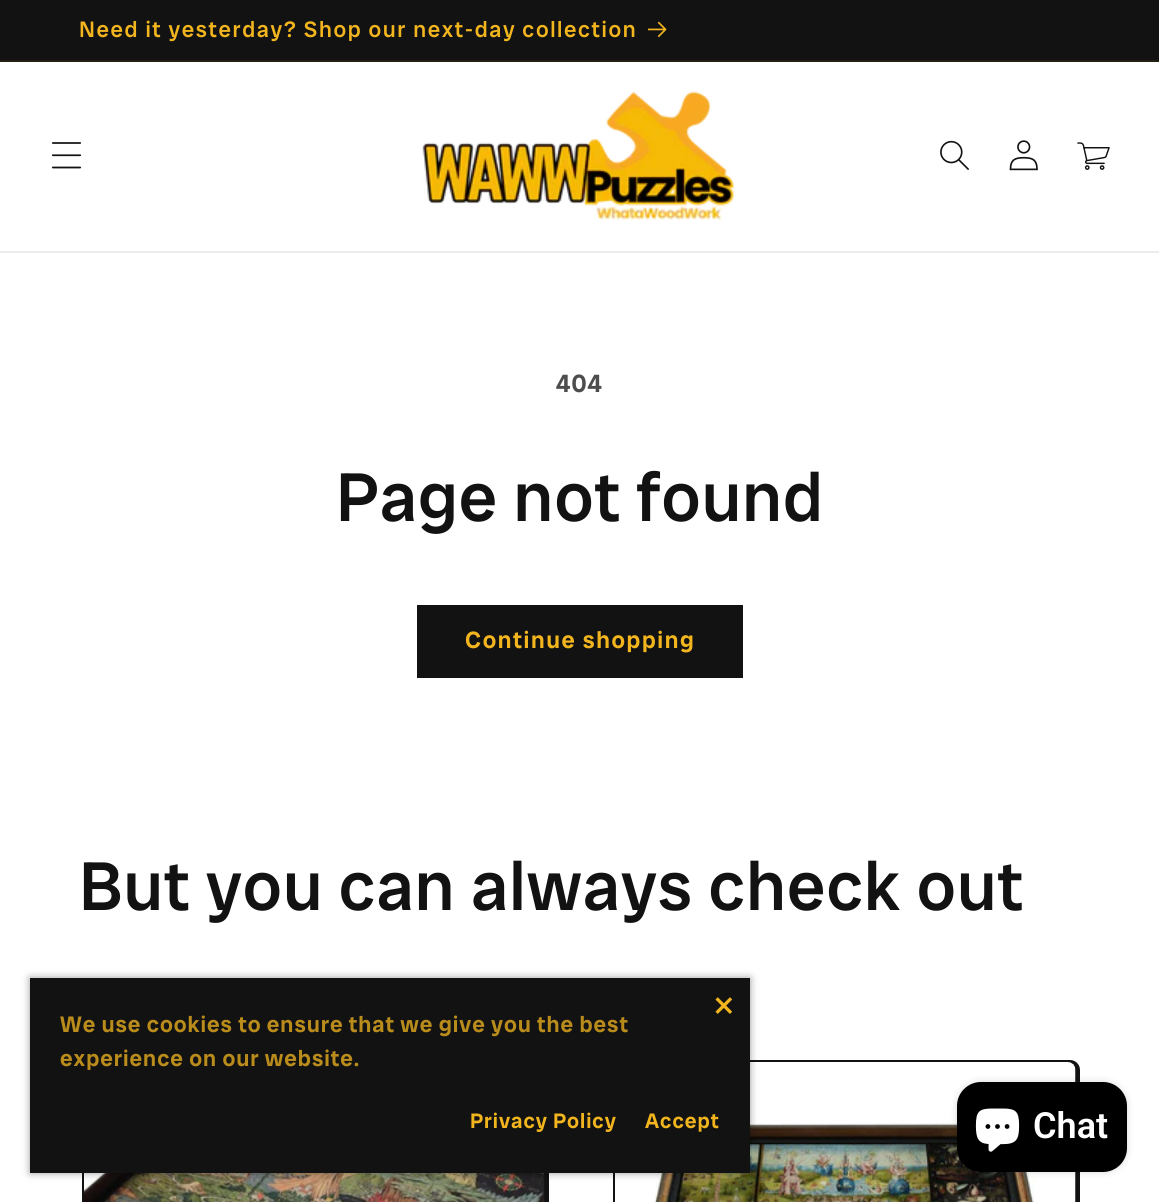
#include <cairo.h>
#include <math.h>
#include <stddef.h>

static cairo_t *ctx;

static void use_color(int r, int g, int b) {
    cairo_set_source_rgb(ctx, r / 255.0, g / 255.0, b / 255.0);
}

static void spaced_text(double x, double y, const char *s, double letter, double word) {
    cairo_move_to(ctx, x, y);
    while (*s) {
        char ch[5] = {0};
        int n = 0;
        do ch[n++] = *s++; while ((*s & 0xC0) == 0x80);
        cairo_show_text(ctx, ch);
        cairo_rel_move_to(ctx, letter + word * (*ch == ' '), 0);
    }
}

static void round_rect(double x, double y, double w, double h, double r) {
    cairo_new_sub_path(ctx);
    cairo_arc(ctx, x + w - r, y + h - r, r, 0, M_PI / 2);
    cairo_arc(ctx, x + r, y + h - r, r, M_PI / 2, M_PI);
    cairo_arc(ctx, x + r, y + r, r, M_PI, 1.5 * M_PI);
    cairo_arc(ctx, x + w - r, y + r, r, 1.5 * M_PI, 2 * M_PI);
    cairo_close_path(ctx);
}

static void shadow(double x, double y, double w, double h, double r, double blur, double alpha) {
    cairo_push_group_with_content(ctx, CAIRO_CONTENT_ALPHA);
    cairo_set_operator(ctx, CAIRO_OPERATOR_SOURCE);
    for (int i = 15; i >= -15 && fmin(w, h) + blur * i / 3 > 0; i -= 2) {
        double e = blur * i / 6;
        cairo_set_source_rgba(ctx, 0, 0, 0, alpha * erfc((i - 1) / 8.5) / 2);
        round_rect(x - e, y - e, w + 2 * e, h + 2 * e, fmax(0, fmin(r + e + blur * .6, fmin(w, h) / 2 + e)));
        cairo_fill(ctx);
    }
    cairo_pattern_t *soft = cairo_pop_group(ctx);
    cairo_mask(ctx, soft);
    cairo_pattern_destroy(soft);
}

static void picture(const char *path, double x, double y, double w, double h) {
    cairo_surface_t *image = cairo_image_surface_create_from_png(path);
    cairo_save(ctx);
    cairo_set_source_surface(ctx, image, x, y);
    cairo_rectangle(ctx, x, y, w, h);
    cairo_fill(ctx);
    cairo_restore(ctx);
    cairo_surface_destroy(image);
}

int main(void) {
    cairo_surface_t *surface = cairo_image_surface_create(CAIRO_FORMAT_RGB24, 1159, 1202);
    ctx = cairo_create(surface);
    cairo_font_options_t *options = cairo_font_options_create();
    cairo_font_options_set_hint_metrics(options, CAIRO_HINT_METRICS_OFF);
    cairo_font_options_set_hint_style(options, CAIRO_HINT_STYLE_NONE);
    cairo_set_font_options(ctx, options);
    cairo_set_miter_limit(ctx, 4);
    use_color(255, 255, 255);
    cairo_paint(ctx);
    use_color(18, 18, 18);
    cairo_rectangle(ctx, 0, 0, 1159, 60);
    cairo_fill(ctx);
    use_color(36, 31, 19);
    cairo_rectangle(ctx, 0, 60, 1159, 2);
    cairo_fill(ctx);
    cairo_select_font_face(ctx, "Radio Canada Big Medium", CAIRO_FONT_SLANT_NORMAL, CAIRO_FONT_WEIGHT_NORMAL);
    cairo_set_font_size(ctx, 22.4);
    use_color(242, 181, 30);
    spaced_text(79, 37, "Need it yesterday? Shop our next-day collection", 1.6, 0);
    picture("img1.png", 648, 21, 19, 16);
    use_color(236, 236, 236);
    cairo_rectangle(ctx, 0, 251, 1159, 2);
    cairo_fill(ctx);
    picture("img2.png", 51, 142, 31, 27);
    picture("img3.png", 422, 91, 312, 130);
    picture("img4.png", 940, 140, 29, 30);
    picture("img5.png", 1009, 140, 29, 31);
    picture("img6.png", 1077, 142, 33, 28);
    cairo_select_font_face(ctx, "Radio Canada Big SemiBold", CAIRO_FONT_SLANT_NORMAL, CAIRO_FONT_WEIGHT_NORMAL);
    cairo_set_font_size(ctx, 25);
    use_color(77, 77, 77);
    spaced_text(556, 392, "404", 0.95, 0);
    cairo_select_font_face(ctx, "Radio Canada Big Medium", CAIRO_FONT_SLANT_NORMAL, CAIRO_FONT_WEIGHT_NORMAL);
    cairo_set_font_size(ctx, 69);
    use_color(18, 18, 18);
    spaced_text(336, 521, "Page not found", 1, 0);
    cairo_rectangle(ctx, 417, 605, 326, 73);
    cairo_fill(ctx);
    cairo_select_font_face(ctx, "Radio Canada Big SemiBold", CAIRO_FONT_SLANT_NORMAL, CAIRO_FONT_WEIGHT_NORMAL);
    cairo_set_font_size(ctx, 23.6);
    use_color(242, 181, 30);
    spaced_text(465, 648, "Continue shopping", 1.6, 0);
    cairo_select_font_face(ctx, "Radio Canada Big Medium", CAIRO_FONT_SLANT_NORMAL, CAIRO_FONT_WEIGHT_NORMAL);
    cairo_set_font_size(ctx, 69);
    use_color(18, 18, 18);
    spaced_text(79, 910, "But you can always check out", 1, 0);
    cairo_rectangle(ctx, 82, 1173, 467, 29);
    cairo_fill(ctx);
    picture("img7.png", 84, 1173, 461, 29);
    round_rect(612, 1059, 469, 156, 11);
    cairo_fill_preserve(ctx);
    use_color(255, 255, 255);
    cairo_stroke(ctx);
    picture("img8.png", 615, 1062, 461, 140);
    use_color(0, 0, 0);
    shadow(30, 978, 720, 195, 0, 4, 0.4);
    use_color(18, 18, 18);
    cairo_rectangle(ctx, 30, 978, 720, 195);
    cairo_fill(ctx);
    cairo_select_font_face(ctx, "Open Sans SemiBold", CAIRO_FONT_SLANT_NORMAL, CAIRO_FONT_WEIGHT_NORMAL);
    cairo_set_font_size(ctx, 38);
    use_color(242, 181, 30);
    spaced_text(713, 1019, "×", 0.95, 0);
    cairo_select_font_face(ctx, "Radio Canada Big SemiBold", CAIRO_FONT_SLANT_NORMAL, CAIRO_FONT_WEIGHT_NORMAL);
    cairo_set_font_size(ctx, 22.5);
    use_color(186, 140, 27);
    spaced_text(60, 1032, "We use cookies to ensure that we give you the best", 0.95, 0);
    spaced_text(60, 1066, "experience on our website.", 0.95, 0);
    cairo_set_font_size(ctx, 21);
    use_color(242, 181, 30);
    spaced_text(470, 1128, "Privacy Policy", 0.95, 0);
    spaced_text(645, 1128, "Accept", 0.95, 0);
    use_color(0, 0, 0);
    shadow(957, 1082, 170, 90, 24, 4, 0.15);
    use_color(0, 0, 0);
    round_rect(957, 1082, 170, 90, 24);
    cairo_fill(ctx);
    picture("img9.png", 975, 1108, 45, 44);
    cairo_select_font_face(ctx, "Roboto SemiBold", CAIRO_FONT_SLANT_NORMAL, CAIRO_FONT_WEIGHT_NORMAL);
    cairo_set_font_size(ctx, 36);
    use_color(255, 255, 255);
    cairo_move_to(ctx, 1033, 1138);
    cairo_show_text(ctx, "Chat");
    cairo_surface_write_to_png(surface, "result.png");
    cairo_font_options_destroy(options);
    cairo_destroy(ctx);
    cairo_surface_destroy(surface);
    return 0;
}
